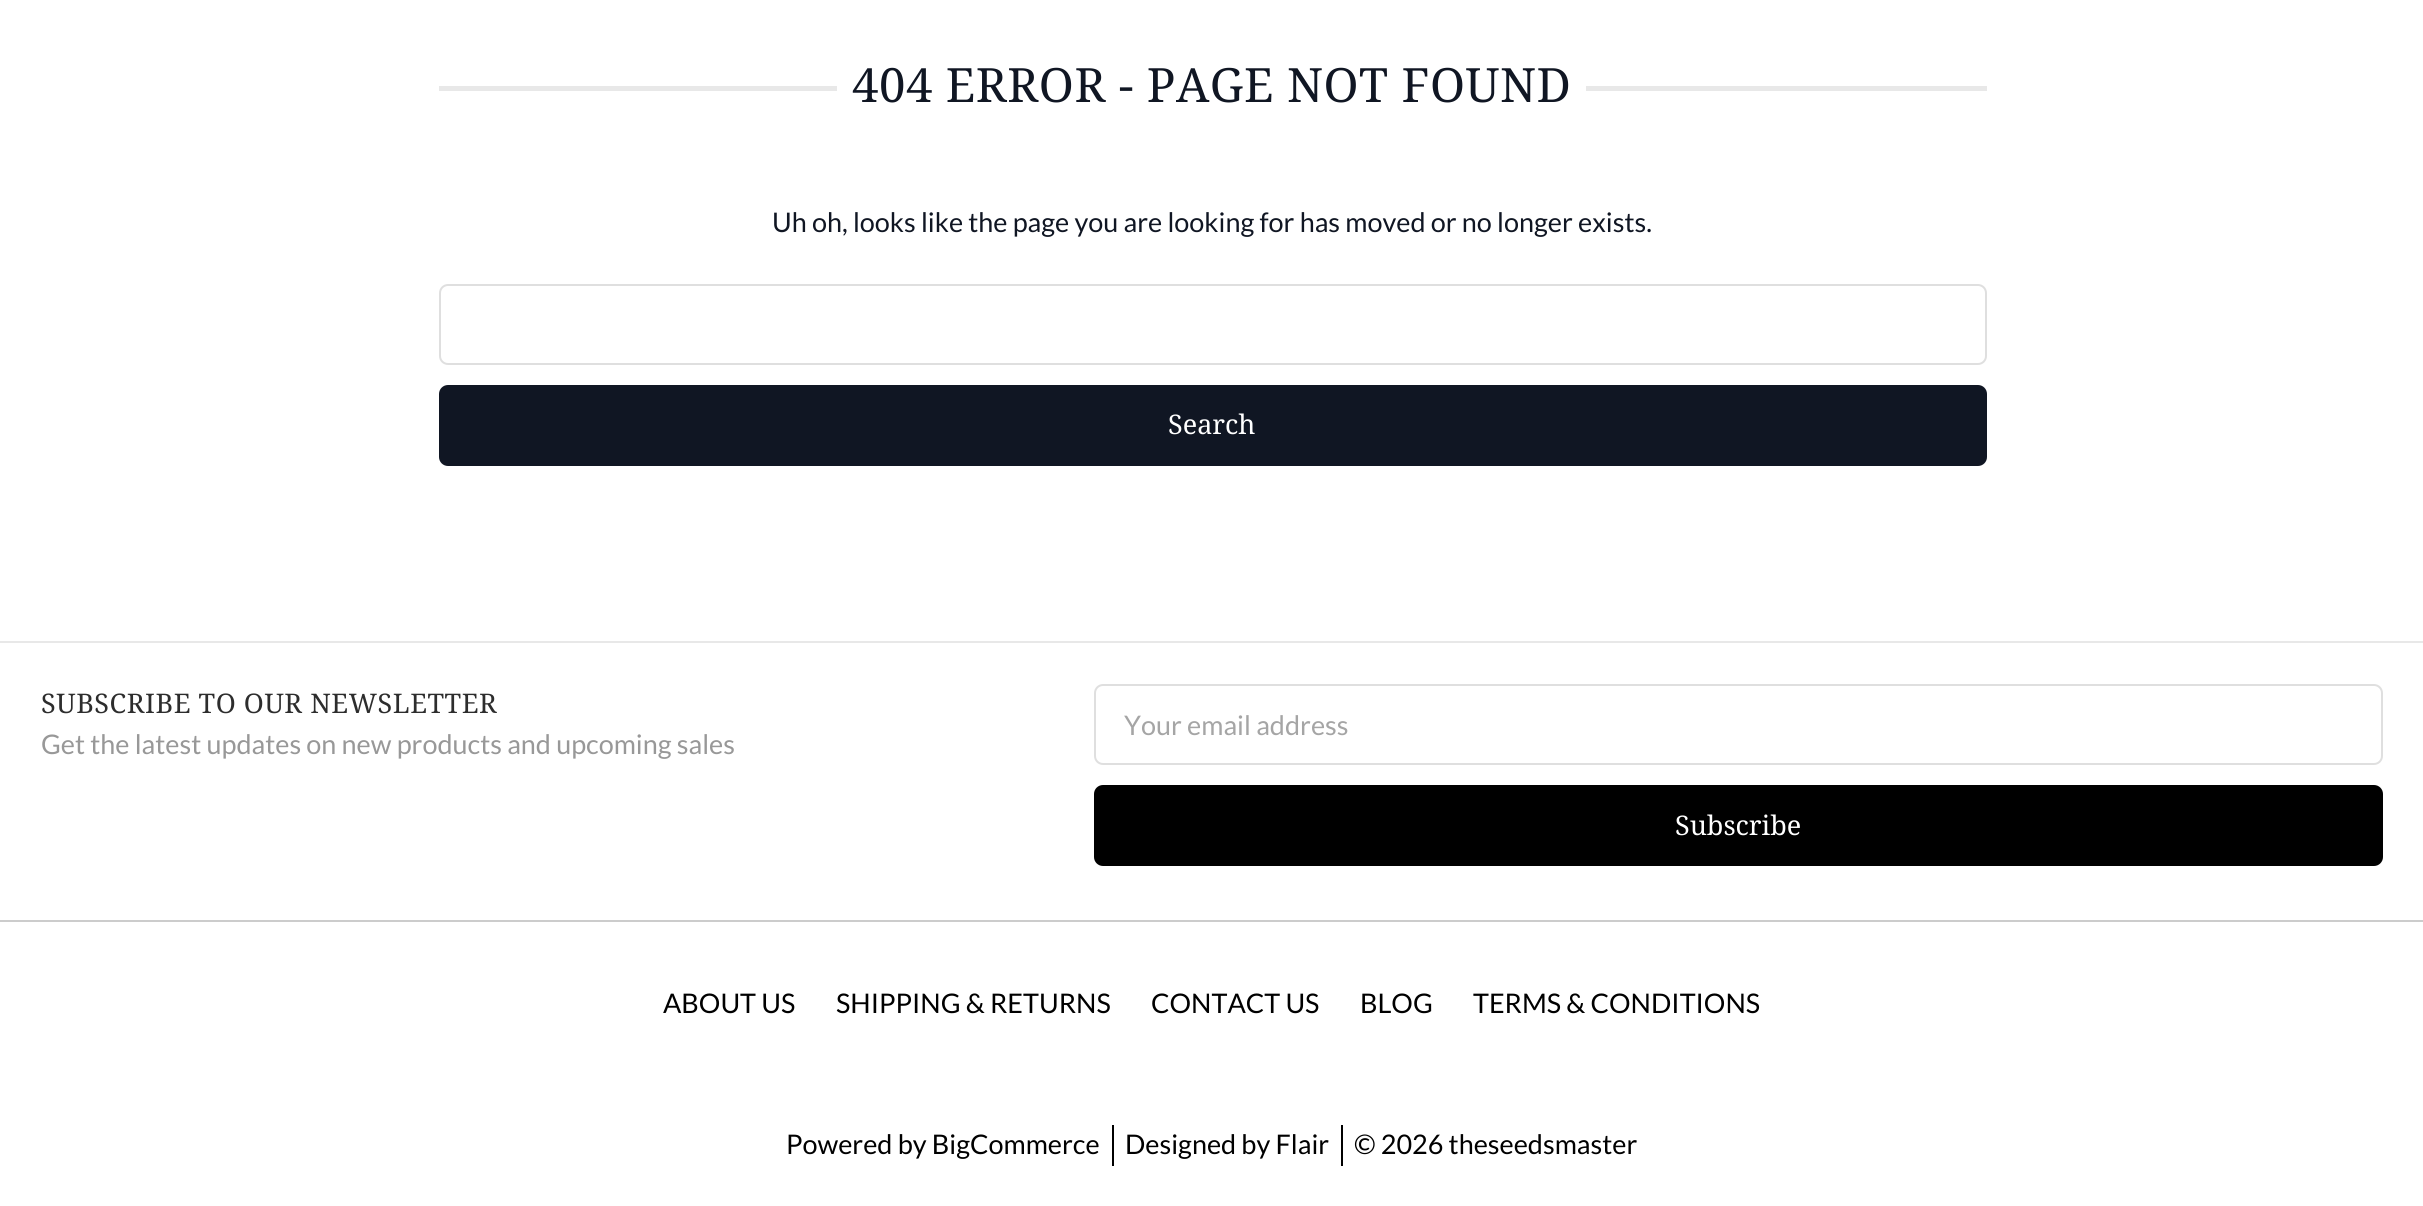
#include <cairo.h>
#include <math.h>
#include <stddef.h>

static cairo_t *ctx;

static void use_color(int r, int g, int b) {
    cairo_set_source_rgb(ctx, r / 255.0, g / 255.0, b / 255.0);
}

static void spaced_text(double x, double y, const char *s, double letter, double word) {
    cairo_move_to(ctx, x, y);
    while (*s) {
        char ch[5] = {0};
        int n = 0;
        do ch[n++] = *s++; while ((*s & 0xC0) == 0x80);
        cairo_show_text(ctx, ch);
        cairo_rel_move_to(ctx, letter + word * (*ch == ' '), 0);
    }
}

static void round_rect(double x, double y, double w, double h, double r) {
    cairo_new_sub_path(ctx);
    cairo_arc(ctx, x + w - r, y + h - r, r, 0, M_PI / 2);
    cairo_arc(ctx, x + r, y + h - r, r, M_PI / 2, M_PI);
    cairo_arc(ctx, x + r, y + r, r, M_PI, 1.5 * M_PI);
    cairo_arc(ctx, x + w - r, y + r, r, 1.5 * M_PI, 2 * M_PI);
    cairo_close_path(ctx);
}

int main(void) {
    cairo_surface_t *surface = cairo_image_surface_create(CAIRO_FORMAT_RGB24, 2423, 1206);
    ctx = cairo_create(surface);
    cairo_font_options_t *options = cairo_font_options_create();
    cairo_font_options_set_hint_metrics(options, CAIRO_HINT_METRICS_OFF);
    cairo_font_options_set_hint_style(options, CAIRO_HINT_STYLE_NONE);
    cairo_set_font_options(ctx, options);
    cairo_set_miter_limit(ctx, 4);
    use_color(255, 255, 255);
    cairo_paint(ctx);
    use_color(232, 232, 232);
    cairo_rectangle(ctx, 439, 86, 398, 5);
    cairo_fill(ctx);
    cairo_select_font_face(ctx, "Noto Serif", CAIRO_FONT_SLANT_NORMAL, CAIRO_FONT_WEIGHT_NORMAL);
    cairo_set_font_size(ctx, 47.25);
    use_color(16, 22, 35);
    spaced_text(852, 102, "404 ERROR - PAGE NOT FOUND", 0.55, 0);
    use_color(232, 232, 232);
    cairo_rectangle(ctx, 1586, 86, 401, 5);
    cairo_fill(ctx);
    cairo_select_font_face(ctx, "Lato", CAIRO_FONT_SLANT_NORMAL, CAIRO_FONT_WEIGHT_NORMAL);
    cairo_set_font_size(ctx, 27);
    use_color(16, 22, 35);
    cairo_move_to(ctx, 772, 232);
    cairo_show_text(ctx, "Uh oh, looks like the page you are looking for has moved or no longer exists.");
    round_rect(440, 285, 1546, 79, 8);
    use_color(223, 223, 223);
    cairo_stroke(ctx);
    use_color(16, 22, 35);
    round_rect(440, 386, 1546, 79, 8);
    cairo_fill_preserve(ctx);
    cairo_stroke(ctx);
    cairo_select_font_face(ctx, "Noto Serif", CAIRO_FONT_SLANT_NORMAL, CAIRO_FONT_WEIGHT_NORMAL);
    use_color(255, 255, 255);
    cairo_move_to(ctx, 1168, 434);
    cairo_show_text(ctx, "Search");
    use_color(232, 232, 232);
    cairo_rectangle(ctx, 0, 641, 2423, 2);
    cairo_fill(ctx);
    use_color(45, 45, 45);
    spaced_text(41, 713, "SUBSCRIBE TO OUR NEWSLETTER", 0.55, 0);
    cairo_select_font_face(ctx, "Lato", CAIRO_FONT_SLANT_NORMAL, CAIRO_FONT_WEIGHT_NORMAL);
    use_color(152, 152, 152);
    cairo_move_to(ctx, 41, 754);
    cairo_show_text(ctx, "Get the latest updates on new products and upcoming sales");
    round_rect(1095, 685, 1287, 79, 8);
    use_color(223, 223, 223);
    cairo_stroke(ctx);
    use_color(165, 165, 165);
    cairo_move_to(ctx, 1124, 735);
    cairo_show_text(ctx, "Your email address");
    use_color(0, 0, 0);
    round_rect(1095, 786, 1287, 79, 8);
    cairo_fill_preserve(ctx);
    cairo_stroke(ctx);
    cairo_select_font_face(ctx, "Noto Serif", CAIRO_FONT_SLANT_NORMAL, CAIRO_FONT_WEIGHT_NORMAL);
    use_color(255, 255, 255);
    cairo_move_to(ctx, 1675, 835);
    cairo_show_text(ctx, "Subscribe");
    use_color(204, 204, 204);
    cairo_rectangle(ctx, 0, 920, 2423, 2);
    cairo_fill(ctx);
    cairo_select_font_face(ctx, "Lato", CAIRO_FONT_SLANT_NORMAL, CAIRO_FONT_WEIGHT_NORMAL);
    use_color(0, 0, 0);
    cairo_move_to(ctx, 663, 1013);
    cairo_show_text(ctx, "ABOUT US");
    cairo_move_to(ctx, 836, 1013);
    cairo_show_text(ctx, "SHIPPING & RETURNS");
    cairo_move_to(ctx, 1151, 1013);
    cairo_show_text(ctx, "CONTACT US");
    cairo_move_to(ctx, 1360, 1013);
    cairo_show_text(ctx, "BLOG");
    cairo_move_to(ctx, 1473, 1013);
    cairo_show_text(ctx, "TERMS & CONDITIONS");
    cairo_rectangle(ctx, 1112, 1125, 2, 41);
    cairo_fill(ctx);
    cairo_move_to(ctx, 786, 1154);
    cairo_show_text(ctx, "Powered by BigCommerce");
    cairo_rectangle(ctx, 1341, 1125, 2, 41);
    cairo_fill(ctx);
    cairo_move_to(ctx, 1125, 1154);
    cairo_show_text(ctx, "Designed by Flair");
    cairo_move_to(ctx, 1354, 1154);
    cairo_show_text(ctx, "© 2026 theseedsmaster");
    cairo_surface_write_to_png(surface, "result.png");
    cairo_font_options_destroy(options);
    cairo_destroy(ctx);
    cairo_surface_destroy(surface);
    return 0;
}
